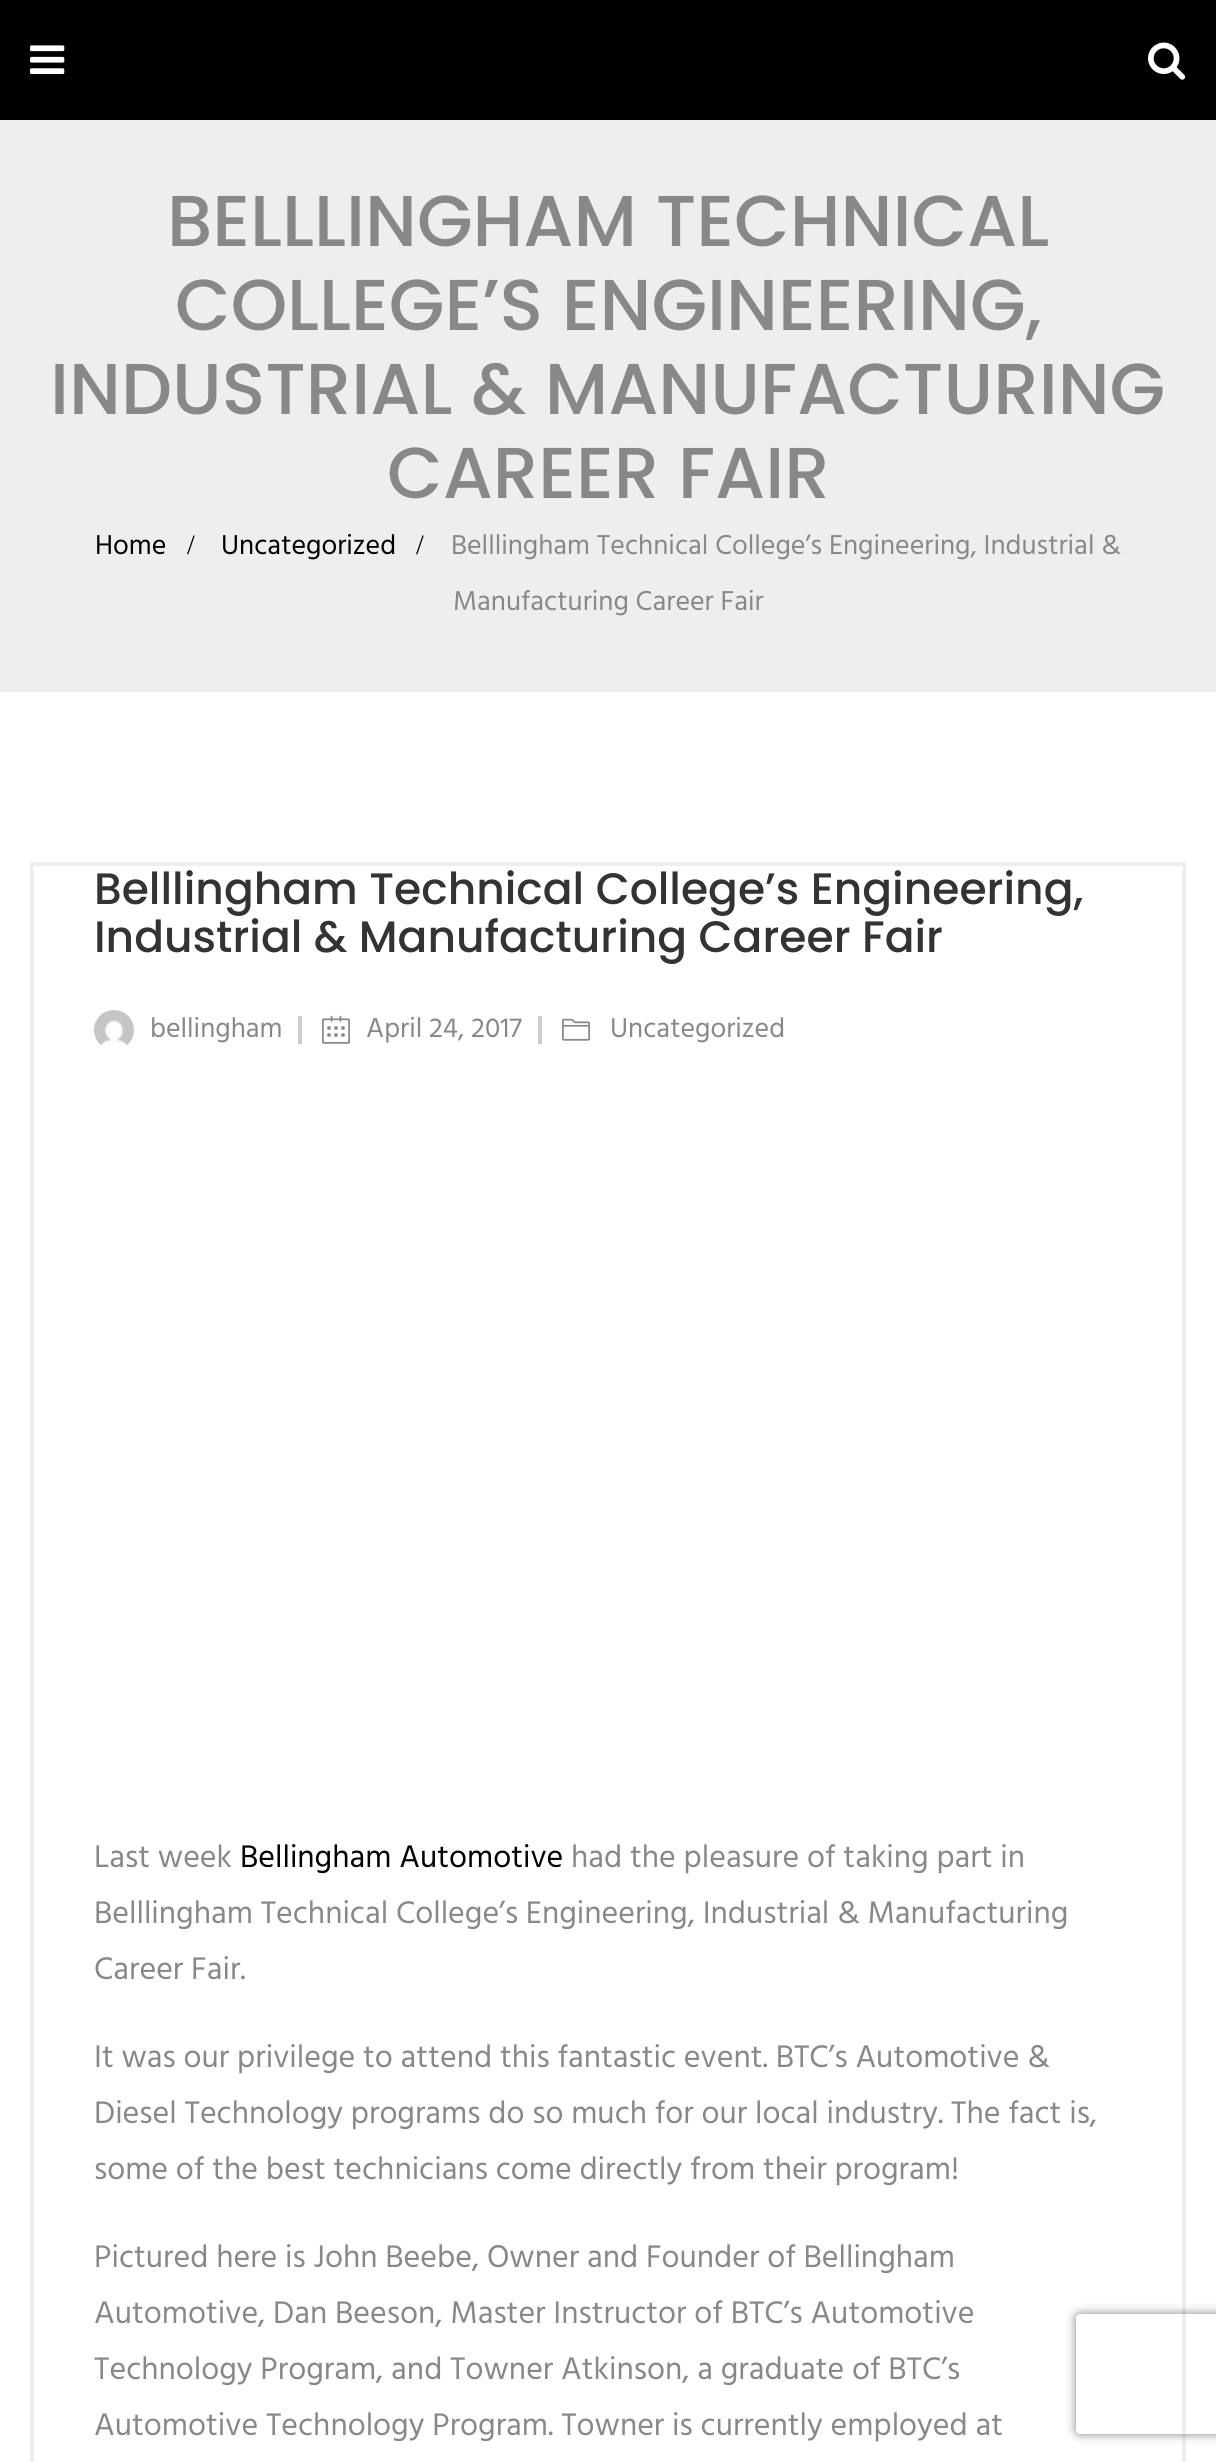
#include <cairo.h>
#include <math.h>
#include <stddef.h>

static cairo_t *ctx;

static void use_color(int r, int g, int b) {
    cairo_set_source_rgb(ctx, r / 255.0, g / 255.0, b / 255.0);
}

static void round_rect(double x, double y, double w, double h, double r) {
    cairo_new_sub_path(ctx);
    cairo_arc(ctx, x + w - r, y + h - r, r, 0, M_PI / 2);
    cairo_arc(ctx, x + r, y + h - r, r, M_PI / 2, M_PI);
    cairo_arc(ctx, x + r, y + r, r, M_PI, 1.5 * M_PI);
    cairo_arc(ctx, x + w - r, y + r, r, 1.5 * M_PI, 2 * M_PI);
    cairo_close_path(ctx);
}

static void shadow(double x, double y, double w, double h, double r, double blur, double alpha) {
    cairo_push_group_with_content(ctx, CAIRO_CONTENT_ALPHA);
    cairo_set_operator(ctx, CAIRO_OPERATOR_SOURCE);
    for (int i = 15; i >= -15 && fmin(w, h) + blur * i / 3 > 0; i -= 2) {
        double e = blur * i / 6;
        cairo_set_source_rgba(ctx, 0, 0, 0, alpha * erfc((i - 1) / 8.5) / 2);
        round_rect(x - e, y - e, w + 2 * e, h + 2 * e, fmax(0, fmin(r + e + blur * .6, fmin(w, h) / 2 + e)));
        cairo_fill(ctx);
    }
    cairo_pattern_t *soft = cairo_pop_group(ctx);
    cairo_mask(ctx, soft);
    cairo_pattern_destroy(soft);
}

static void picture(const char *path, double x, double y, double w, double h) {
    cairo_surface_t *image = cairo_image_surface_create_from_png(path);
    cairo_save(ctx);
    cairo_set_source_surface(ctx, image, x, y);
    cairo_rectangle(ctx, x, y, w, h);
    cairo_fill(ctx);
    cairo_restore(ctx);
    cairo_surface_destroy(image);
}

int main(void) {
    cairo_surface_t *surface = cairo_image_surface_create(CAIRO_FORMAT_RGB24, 1216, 2462);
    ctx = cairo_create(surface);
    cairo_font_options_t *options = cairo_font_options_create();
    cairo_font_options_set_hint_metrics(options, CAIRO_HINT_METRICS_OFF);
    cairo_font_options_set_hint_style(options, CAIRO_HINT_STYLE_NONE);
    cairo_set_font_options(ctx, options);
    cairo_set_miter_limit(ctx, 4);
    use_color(255, 255, 255);
    cairo_paint(ctx);
    use_color(0, 0, 0);
    cairo_rectangle(ctx, 0, 0, 1216, 120);
    cairo_fill(ctx);
    picture("img1.png", 30, 45, 35, 29);
    picture("img2.png", 1148, 42, 38, 38);
    use_color(238, 238, 238);
    cairo_rectangle(ctx, 0, 120, 1216, 572);
    cairo_fill(ctx);
    cairo_select_font_face(ctx, "Poppins Medium", CAIRO_FONT_SLANT_NORMAL, CAIRO_FONT_WEIGHT_NORMAL);
    cairo_set_font_size(ctx, 72);
    use_color(136, 136, 136);
    cairo_move_to(ctx, 167, 246);
    cairo_show_text(ctx, "BELLLINGHAM TECHNICAL");
    cairo_move_to(ctx, 175, 330);
    cairo_show_text(ctx, "COLLEGE’S ENGINEERING,");
    cairo_move_to(ctx, 50, 414);
    cairo_show_text(ctx, "INDUSTRIAL & MANUFACTURING");
    cairo_move_to(ctx, 387, 498);
    cairo_show_text(ctx, "CAREER FAIR");
    cairo_select_font_face(ctx, "Hind", CAIRO_FONT_SLANT_NORMAL, CAIRO_FONT_WEIGHT_NORMAL);
    cairo_set_font_size(ctx, 28);
    use_color(0, 0, 0);
    cairo_move_to(ctx, 95, 554);
    cairo_show_text(ctx, "Home");
    cairo_select_font_face(ctx, "Liberation Serif", CAIRO_FONT_SLANT_NORMAL, CAIRO_FONT_WEIGHT_NORMAL);
    cairo_move_to(ctx, 187, 554);
    cairo_show_text(ctx, "/");
    cairo_select_font_face(ctx, "Hind", CAIRO_FONT_SLANT_NORMAL, CAIRO_FONT_WEIGHT_NORMAL);
    cairo_move_to(ctx, 221, 554);
    cairo_show_text(ctx, "Uncategorized");
    cairo_select_font_face(ctx, "Liberation Serif", CAIRO_FONT_SLANT_NORMAL, CAIRO_FONT_WEIGHT_NORMAL);
    cairo_move_to(ctx, 416, 554);
    cairo_show_text(ctx, "/");
    cairo_select_font_face(ctx, "Hind", CAIRO_FONT_SLANT_NORMAL, CAIRO_FONT_WEIGHT_NORMAL);
    use_color(136, 136, 136);
    cairo_move_to(ctx, 451, 554);
    cairo_show_text(ctx, "Belllingham Technical College’s Engineering, Industrial &");
    cairo_move_to(ctx, 453, 610);
    cairo_show_text(ctx, "Manufacturing Career Fair");
    cairo_rectangle(ctx, 32, 864, 1152, 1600);
    use_color(238, 238, 238);
    cairo_set_line_width(ctx, 4);
    cairo_stroke(ctx);
    cairo_select_font_face(ctx, "Poppins Medium", CAIRO_FONT_SLANT_NORMAL, CAIRO_FONT_WEIGHT_NORMAL);
    cairo_set_font_size(ctx, 44);
    use_color(51, 51, 51);
    cairo_move_to(ctx, 94, 904);
    cairo_show_text(ctx, "Belllingham Technical College’s Engineering,");
    cairo_move_to(ctx, 94, 952);
    cairo_show_text(ctx, "Industrial & Manufacturing Career Fair");
    picture("img3.png", 94, 1010, 40, 36);
    cairo_select_font_face(ctx, "Hind", CAIRO_FONT_SLANT_NORMAL, CAIRO_FONT_WEIGHT_NORMAL);
    cairo_set_font_size(ctx, 28);
    use_color(136, 136, 136);
    cairo_move_to(ctx, 150, 1037);
    cairo_show_text(ctx, "bellingham");
    use_color(204, 204, 204);
    cairo_rectangle(ctx, 298, 1016, 4, 28);
    cairo_fill(ctx);
    picture("img4.png", 322, 1015, 28, 29);
    use_color(136, 136, 136);
    cairo_move_to(ctx, 366, 1037);
    cairo_show_text(ctx, "April 24, 2017");
    use_color(204, 204, 204);
    cairo_rectangle(ctx, 538, 1016, 4, 28);
    cairo_fill(ctx);
    picture("img5.png", 562, 1018, 28, 23);
    use_color(136, 136, 136);
    cairo_move_to(ctx, 610, 1037);
    cairo_show_text(ctx, "Uncategorized");
    cairo_set_font_size(ctx, 32);
    cairo_move_to(ctx, 94, 1867);
    cairo_show_text(ctx, "Last week");
    use_color(0, 0, 0);
    cairo_move_to(ctx, 240, 1867);
    cairo_show_text(ctx, "Bellingham Automotive");
    use_color(136, 136, 136);
    cairo_move_to(ctx, 571, 1867);
    cairo_show_text(ctx, "had the pleasure of taking part in");
    cairo_move_to(ctx, 94, 1923);
    cairo_show_text(ctx, "Belllingham Technical College’s Engineering, Industrial & Manufacturing");
    cairo_move_to(ctx, 94, 1979);
    cairo_show_text(ctx, "Career Fair.");
    cairo_move_to(ctx, 94, 2067);
    cairo_show_text(ctx, "It was our privilege to attend this fantastic event. BTC’s Automotive &");
    cairo_move_to(ctx, 94, 2123);
    cairo_show_text(ctx, "Diesel Technology programs do so much for our local industry. The fact is,");
    cairo_move_to(ctx, 94, 2179);
    cairo_show_text(ctx, "some of the best technicians come directly from their program!");
    cairo_move_to(ctx, 94, 2267);
    cairo_show_text(ctx, "Pictured here is John Beebe, Owner and Founder of Bellingham");
    cairo_move_to(ctx, 94, 2323);
    cairo_show_text(ctx, "Automotive, Dan Beeson, Master Instructor of BTC’s Automotive");
    cairo_move_to(ctx, 94, 2379);
    cairo_show_text(ctx, "Technology Program, and Towner Atkinson, a graduate of BTC’s");
    cairo_move_to(ctx, 94, 2435);
    cairo_show_text(ctx, "Automotive Technology Program. Towner is currently employed at");
    cairo_save(ctx);
    cairo_set_fill_rule(ctx, CAIRO_FILL_RULE_EVEN_ODD);
    cairo_new_path(ctx);
    cairo_move_to(ctx, 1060, 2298);
    cairo_line_to(ctx, 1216, 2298);
    cairo_line_to(ctx, 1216, 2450);
    cairo_line_to(ctx, 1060, 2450);
    cairo_close_path(ctx);
    cairo_move_to(ctx, 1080, 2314);
    cairo_line_to(ctx, 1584, 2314);
    cairo_curve_to(ctx, 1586, 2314, 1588, 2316, 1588, 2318);
    cairo_line_to(ctx, 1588, 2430);
    cairo_curve_to(ctx, 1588, 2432, 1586, 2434, 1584, 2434);
    cairo_line_to(ctx, 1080, 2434);
    cairo_curve_to(ctx, 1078, 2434, 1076, 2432, 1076, 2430);
    cairo_line_to(ctx, 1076, 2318);
    cairo_curve_to(ctx, 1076, 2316, 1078, 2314, 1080, 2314);
    cairo_close_path(ctx);
    cairo_clip(ctx);
    use_color(128, 128, 128);
    shadow(1076, 2314, 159, 120, 4, 5, 1);
    cairo_restore(ctx);
    cairo_surface_write_to_png(surface, "result.png");
    cairo_font_options_destroy(options);
    cairo_destroy(ctx);
    cairo_surface_destroy(surface);
    return 0;
}
